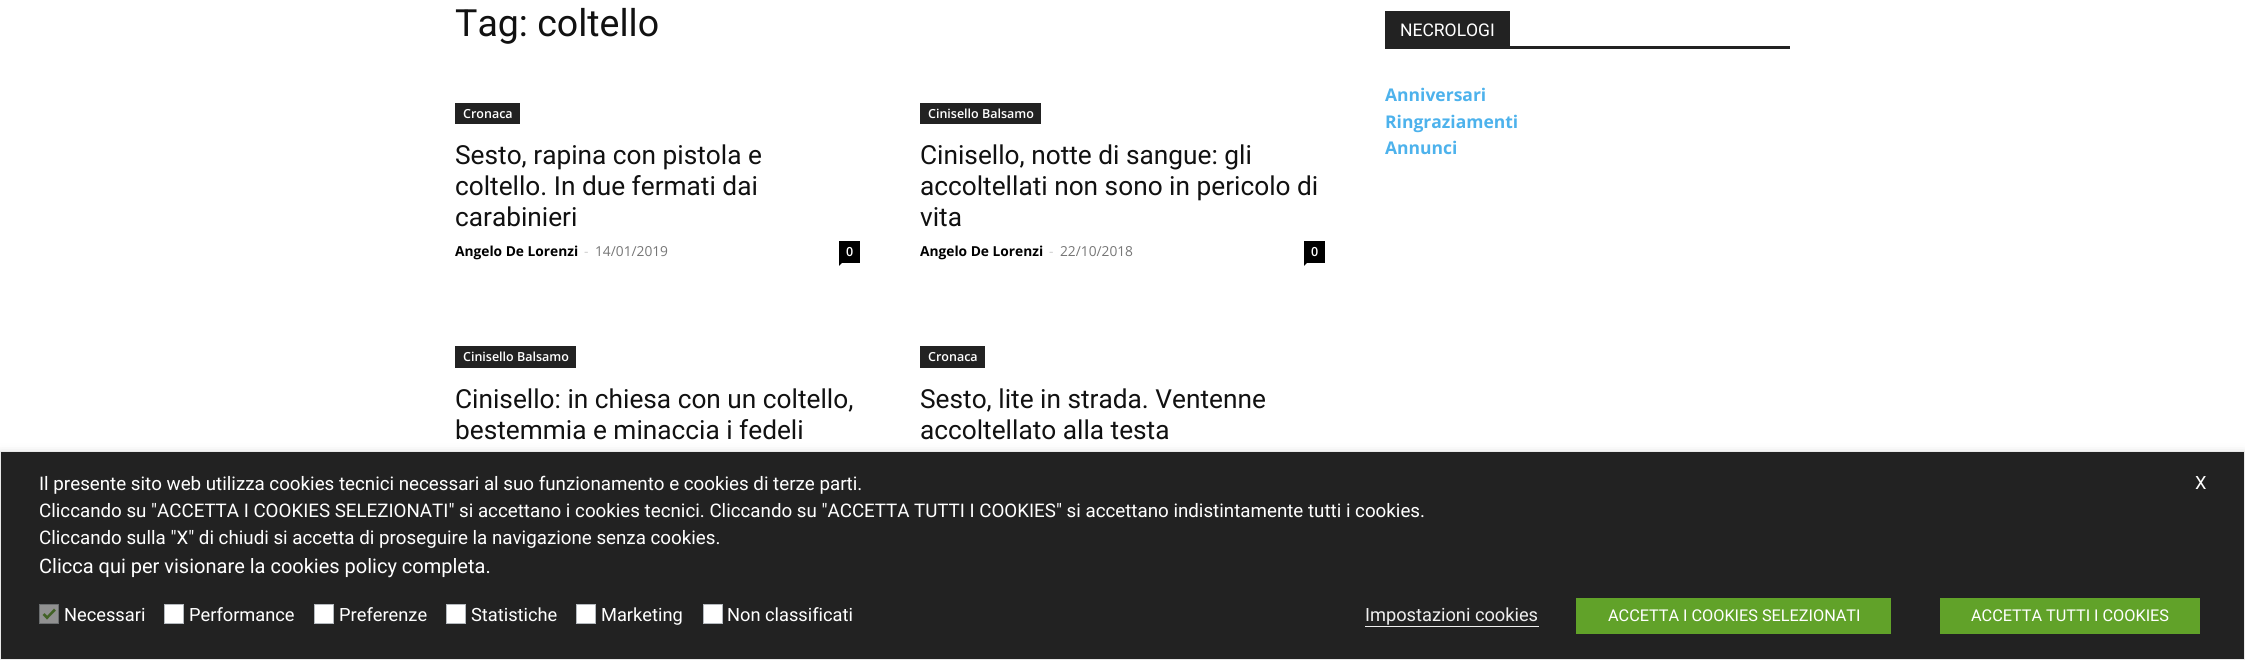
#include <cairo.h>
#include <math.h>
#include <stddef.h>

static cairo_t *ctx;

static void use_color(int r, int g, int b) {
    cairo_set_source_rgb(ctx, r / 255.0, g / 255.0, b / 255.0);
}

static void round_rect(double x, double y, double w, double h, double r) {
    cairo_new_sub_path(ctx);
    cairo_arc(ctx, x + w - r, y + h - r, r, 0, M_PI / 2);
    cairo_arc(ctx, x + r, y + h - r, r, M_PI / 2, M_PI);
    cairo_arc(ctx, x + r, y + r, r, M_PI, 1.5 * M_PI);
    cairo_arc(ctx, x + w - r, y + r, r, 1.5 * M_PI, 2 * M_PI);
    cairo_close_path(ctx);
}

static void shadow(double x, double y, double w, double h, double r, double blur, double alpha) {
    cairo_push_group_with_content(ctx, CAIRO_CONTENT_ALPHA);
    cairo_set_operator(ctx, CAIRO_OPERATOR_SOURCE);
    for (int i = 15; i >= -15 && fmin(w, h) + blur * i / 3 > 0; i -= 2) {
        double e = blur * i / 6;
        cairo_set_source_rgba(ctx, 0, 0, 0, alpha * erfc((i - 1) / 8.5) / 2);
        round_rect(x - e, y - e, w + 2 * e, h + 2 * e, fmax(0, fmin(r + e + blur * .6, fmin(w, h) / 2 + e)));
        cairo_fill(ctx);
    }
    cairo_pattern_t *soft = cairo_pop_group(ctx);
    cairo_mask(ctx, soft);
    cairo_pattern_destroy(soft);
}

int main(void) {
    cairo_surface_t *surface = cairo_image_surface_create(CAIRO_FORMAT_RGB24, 2245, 660);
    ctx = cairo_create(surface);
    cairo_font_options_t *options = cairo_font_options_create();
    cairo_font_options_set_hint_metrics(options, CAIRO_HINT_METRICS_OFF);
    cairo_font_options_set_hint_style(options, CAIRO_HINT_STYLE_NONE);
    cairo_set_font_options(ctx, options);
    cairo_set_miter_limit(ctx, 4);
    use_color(255, 255, 255);
    cairo_paint(ctx);
    cairo_select_font_face(ctx, "Roboto", CAIRO_FONT_SLANT_NORMAL, CAIRO_FONT_WEIGHT_NORMAL);
    cairo_set_font_size(ctx, 37.5);
    use_color(17, 17, 17);
    cairo_move_to(ctx, 455, 36);
    cairo_show_text(ctx, "Tag: coltello");
    use_color(34, 34, 34);
    cairo_rectangle(ctx, 455, 103, 65, 21);
    cairo_fill(ctx);
    cairo_select_font_face(ctx, "Open Sans SemiBold", CAIRO_FONT_SLANT_NORMAL, CAIRO_FONT_WEIGHT_NORMAL);
    cairo_set_font_size(ctx, 12.5);
    use_color(255, 255, 255);
    cairo_move_to(ctx, 463, 118);
    cairo_show_text(ctx, "Cronaca");
    cairo_select_font_face(ctx, "Roboto", CAIRO_FONT_SLANT_NORMAL, CAIRO_FONT_WEIGHT_NORMAL);
    cairo_set_font_size(ctx, 26.25);
    use_color(17, 17, 17);
    cairo_move_to(ctx, 455, 164);
    cairo_show_text(ctx, "Sesto, rapina con pistola e");
    cairo_move_to(ctx, 455, 195);
    cairo_show_text(ctx, "coltello. In due fermati dai");
    cairo_move_to(ctx, 455, 226);
    cairo_show_text(ctx, "carabinieri");
    cairo_select_font_face(ctx, "Open Sans", CAIRO_FONT_SLANT_NORMAL, CAIRO_FONT_WEIGHT_BOLD);
    cairo_set_font_size(ctx, 13.75);
    use_color(0, 0, 0);
    cairo_move_to(ctx, 455, 256);
    cairo_show_text(ctx, "Angelo De Lorenzi");
    cairo_select_font_face(ctx, "Open Sans", CAIRO_FONT_SLANT_NORMAL, CAIRO_FONT_WEIGHT_NORMAL);
    use_color(204, 204, 204);
    cairo_move_to(ctx, 584, 256);
    cairo_show_text(ctx, "-");
    use_color(118, 118, 118);
    cairo_move_to(ctx, 595, 256);
    cairo_show_text(ctx, "14/01/2019");
    use_color(0, 0, 0);
    cairo_rectangle(ctx, 839, 241, 21, 22);
    cairo_fill(ctx);
    cairo_select_font_face(ctx, "Open Sans SemiBold", CAIRO_FONT_SLANT_NORMAL, CAIRO_FONT_WEIGHT_NORMAL);
    cairo_set_font_size(ctx, 12.5);
    use_color(255, 255, 255);
    cairo_move_to(ctx, 846, 256);
    cairo_show_text(ctx, "0");
    use_color(0, 0, 0);
    cairo_new_path(ctx);
    cairo_move_to(ctx, 839, 262.5);
    cairo_line_to(ctx, 842.5, 262.5);
    cairo_line_to(ctx, 839, 266);
    cairo_close_path(ctx);
    cairo_fill(ctx);
    use_color(34, 34, 34);
    cairo_rectangle(ctx, 920, 103, 121, 21);
    cairo_fill(ctx);
    use_color(255, 255, 255);
    cairo_move_to(ctx, 928, 118);
    cairo_show_text(ctx, "Cinisello Balsamo");
    cairo_select_font_face(ctx, "Roboto", CAIRO_FONT_SLANT_NORMAL, CAIRO_FONT_WEIGHT_NORMAL);
    cairo_set_font_size(ctx, 26.25);
    use_color(17, 17, 17);
    cairo_move_to(ctx, 920, 164);
    cairo_show_text(ctx, "Cinisello, notte di sangue: gli");
    cairo_move_to(ctx, 920, 195);
    cairo_show_text(ctx, "accoltellati non sono in pericolo di");
    cairo_move_to(ctx, 920, 226);
    cairo_show_text(ctx, "vita");
    cairo_select_font_face(ctx, "Open Sans", CAIRO_FONT_SLANT_NORMAL, CAIRO_FONT_WEIGHT_BOLD);
    cairo_set_font_size(ctx, 13.75);
    use_color(0, 0, 0);
    cairo_move_to(ctx, 920, 256);
    cairo_show_text(ctx, "Angelo De Lorenzi");
    cairo_select_font_face(ctx, "Open Sans", CAIRO_FONT_SLANT_NORMAL, CAIRO_FONT_WEIGHT_NORMAL);
    use_color(204, 204, 204);
    cairo_move_to(ctx, 1049, 256);
    cairo_show_text(ctx, "-");
    use_color(118, 118, 118);
    cairo_move_to(ctx, 1060, 256);
    cairo_show_text(ctx, "22/10/2018");
    use_color(0, 0, 0);
    cairo_rectangle(ctx, 1304, 241, 21, 22);
    cairo_fill(ctx);
    cairo_select_font_face(ctx, "Open Sans SemiBold", CAIRO_FONT_SLANT_NORMAL, CAIRO_FONT_WEIGHT_NORMAL);
    cairo_set_font_size(ctx, 12.5);
    use_color(255, 255, 255);
    cairo_move_to(ctx, 1311, 256);
    cairo_show_text(ctx, "0");
    use_color(0, 0, 0);
    cairo_new_path(ctx);
    cairo_move_to(ctx, 1304, 262.5);
    cairo_line_to(ctx, 1307.5, 262.5);
    cairo_line_to(ctx, 1304, 266);
    cairo_close_path(ctx);
    cairo_fill(ctx);
    use_color(34, 34, 34);
    cairo_rectangle(ctx, 455, 346, 121, 22);
    cairo_fill(ctx);
    use_color(255, 255, 255);
    cairo_move_to(ctx, 463, 361);
    cairo_show_text(ctx, "Cinisello Balsamo");
    cairo_select_font_face(ctx, "Roboto", CAIRO_FONT_SLANT_NORMAL, CAIRO_FONT_WEIGHT_NORMAL);
    cairo_set_font_size(ctx, 26.25);
    use_color(17, 17, 17);
    cairo_move_to(ctx, 455, 408);
    cairo_show_text(ctx, "Cinisello: in chiesa con un coltello,");
    cairo_move_to(ctx, 455, 439);
    cairo_show_text(ctx, "bestemmia e minaccia i fedeli");
    use_color(34, 34, 34);
    cairo_rectangle(ctx, 920, 346, 65, 22);
    cairo_fill(ctx);
    cairo_select_font_face(ctx, "Open Sans SemiBold", CAIRO_FONT_SLANT_NORMAL, CAIRO_FONT_WEIGHT_NORMAL);
    cairo_set_font_size(ctx, 12.5);
    use_color(255, 255, 255);
    cairo_move_to(ctx, 928, 361);
    cairo_show_text(ctx, "Cronaca");
    cairo_select_font_face(ctx, "Roboto", CAIRO_FONT_SLANT_NORMAL, CAIRO_FONT_WEIGHT_NORMAL);
    cairo_set_font_size(ctx, 26.25);
    use_color(17, 17, 17);
    cairo_move_to(ctx, 920, 408);
    cairo_show_text(ctx, "Sesto, lite in strada. Ventenne");
    cairo_move_to(ctx, 920, 439);
    cairo_show_text(ctx, "accoltellato alla testa");
    use_color(34, 34, 34);
    cairo_rectangle(ctx, 1385, 46, 405, 3);
    cairo_fill(ctx);
    cairo_rectangle(ctx, 1385, 11, 125, 35);
    cairo_fill(ctx);
    cairo_set_font_size(ctx, 17.5);
    use_color(255, 255, 255);
    cairo_move_to(ctx, 1400, 36);
    cairo_show_text(ctx, "NECROLOGI");
    cairo_select_font_face(ctx, "Open Sans", CAIRO_FONT_SLANT_NORMAL, CAIRO_FONT_WEIGHT_BOLD);
    use_color(77, 178, 236);
    cairo_move_to(ctx, 1385, 101);
    cairo_show_text(ctx, "Anniversari");
    cairo_move_to(ctx, 1385, 128);
    cairo_show_text(ctx, "Ringraziamenti");
    cairo_move_to(ctx, 1385, 154);
    cairo_show_text(ctx, "Annunci");
    use_color(0, 0, 0);
    shadow(0, 458, 2245, 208, 0, 6, 0.5);
    use_color(34, 34, 34);
    cairo_rectangle(ctx, 0.5, 451.5, 2244, 208);
    cairo_fill_preserve(ctx);
    use_color(233, 233, 233);
    cairo_set_line_width(ctx, 1);
    cairo_stroke(ctx);
    cairo_select_font_face(ctx, "Roboto", CAIRO_FONT_SLANT_NORMAL, CAIRO_FONT_WEIGHT_NORMAL);
    cairo_set_font_size(ctx, 18.75);
    use_color(255, 255, 255);
    cairo_move_to(ctx, 39, 490);
    cairo_show_text(ctx, "Il presente sito web utilizza cookies tecnici necessari al suo funzionamento e cookies di terze parti.");
    cairo_move_to(ctx, 39, 517);
    cairo_show_text(ctx, "Cliccando su \"ACCETTA I COOKIES SELEZIONATI\" si accettano i cookies tecnici. Cliccando su \"ACCETTA TUTTI I COOKIES\" si accettano indistintamente tutti i cookies.");
    cairo_move_to(ctx, 39, 544);
    cairo_show_text(ctx, "Cliccando sulla \"X\" di chiudi si accetta di proseguire la navigazione senza cookies.");
    cairo_set_font_size(ctx, 20);
    cairo_move_to(ctx, 39, 573);
    cairo_show_text(ctx, "Clicca qui per visionare la cookies policy completa.");
    use_color(145, 145, 145);
    cairo_rectangle(ctx, 39.5, 604.5, 19, 19);
    cairo_fill_preserve(ctx);
    use_color(107, 110, 112);
    cairo_stroke(ctx);
    use_color(66, 98, 38);
    cairo_new_path(ctx);
    cairo_move_to(ctx, 54, 608.5);
    cairo_line_to(ctx, 56, 610.5);
    cairo_line_to(ctx, 47, 619.5);
    cairo_line_to(ctx, 45.5, 617.5);
    cairo_close_path(ctx);
    cairo_fill(ctx);
    cairo_new_path(ctx);
    cairo_move_to(ctx, 44.5, 613);
    cairo_line_to(ctx, 49, 617.5);
    cairo_line_to(ctx, 47, 619.5);
    cairo_line_to(ctx, 42.5, 615);
    cairo_close_path(ctx);
    cairo_fill(ctx);
    cairo_set_font_size(ctx, 18.25);
    use_color(255, 255, 255);
    cairo_move_to(ctx, 64, 621);
    cairo_show_text(ctx, "Necessari");
    cairo_rectangle(ctx, 164.5, 604.5, 19, 19);
    cairo_fill_preserve(ctx);
    use_color(180, 185, 190);
    cairo_stroke(ctx);
    use_color(255, 255, 255);
    cairo_move_to(ctx, 189, 621);
    cairo_show_text(ctx, "Performance");
    cairo_rectangle(ctx, 314.5, 604.5, 19, 19);
    cairo_fill_preserve(ctx);
    use_color(180, 185, 190);
    cairo_stroke(ctx);
    use_color(255, 255, 255);
    cairo_move_to(ctx, 339, 621);
    cairo_show_text(ctx, "Preferenze");
    cairo_rectangle(ctx, 446.5, 604.5, 19, 19);
    cairo_fill_preserve(ctx);
    use_color(180, 185, 190);
    cairo_stroke(ctx);
    use_color(255, 255, 255);
    cairo_move_to(ctx, 471, 621);
    cairo_show_text(ctx, "Statistiche");
    cairo_rectangle(ctx, 576.5, 604.5, 19, 19);
    cairo_fill_preserve(ctx);
    use_color(180, 185, 190);
    cairo_stroke(ctx);
    use_color(255, 255, 255);
    cairo_move_to(ctx, 601, 621);
    cairo_show_text(ctx, "Marketing");
    cairo_rectangle(ctx, 703.5, 604.5, 19, 19);
    cairo_fill_preserve(ctx);
    use_color(180, 185, 190);
    cairo_stroke(ctx);
    use_color(255, 255, 255);
    cairo_move_to(ctx, 727, 621);
    cairo_show_text(ctx, "Non classificati");
    use_color(238, 238, 238);
    cairo_move_to(ctx, 1365, 621);
    cairo_show_text(ctx, "Impostazioni cookies");
    cairo_rectangle(ctx, 1365, 626, 174, 1);
    cairo_fill(ctx);
    use_color(97, 162, 41);
    cairo_rectangle(ctx, 1576, 598, 315, 36);
    cairo_fill(ctx);
    cairo_set_font_size(ctx, 16.25);
    use_color(255, 255, 255);
    cairo_move_to(ctx, 1608, 621);
    cairo_show_text(ctx, "ACCETTA I COOKIES SELEZIONATI");
    use_color(97, 162, 41);
    cairo_rectangle(ctx, 1940, 598, 260, 36);
    cairo_fill(ctx);
    use_color(255, 255, 255);
    cairo_move_to(ctx, 1971, 621);
    cairo_show_text(ctx, "ACCETTA TUTTI I COOKIES");
    cairo_set_font_size(ctx, 18.25);
    cairo_move_to(ctx, 2195, 489);
    cairo_show_text(ctx, "X");
    cairo_surface_write_to_png(surface, "result.png");
    cairo_font_options_destroy(options);
    cairo_destroy(ctx);
    cairo_surface_destroy(surface);
    return 0;
}
